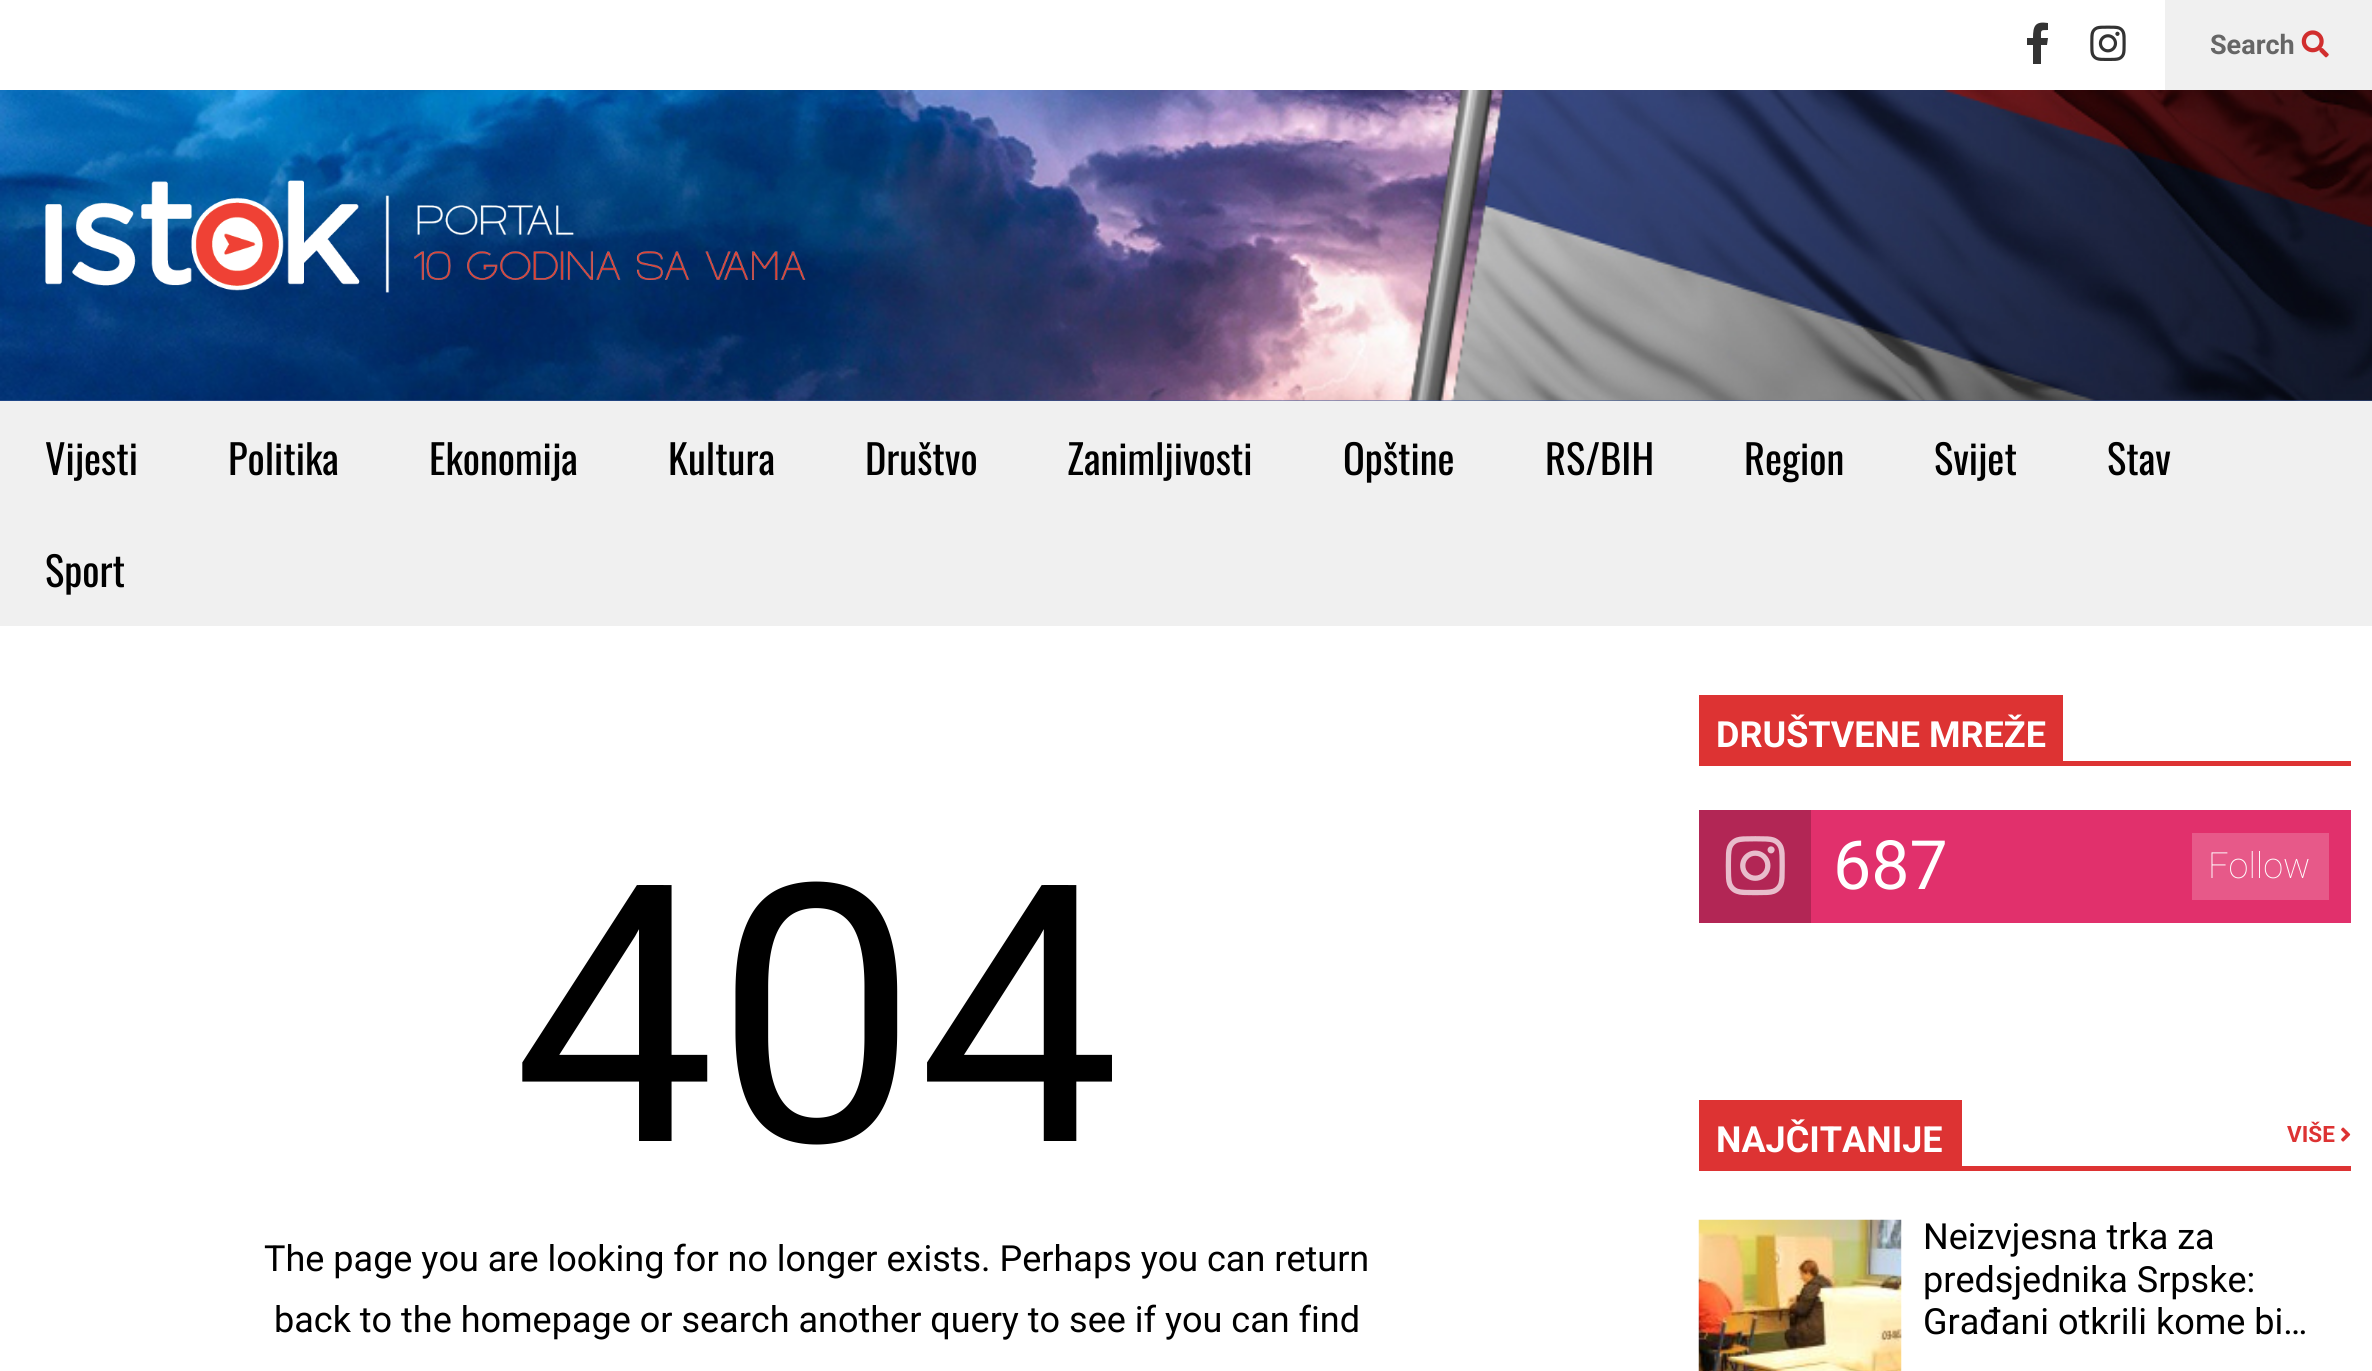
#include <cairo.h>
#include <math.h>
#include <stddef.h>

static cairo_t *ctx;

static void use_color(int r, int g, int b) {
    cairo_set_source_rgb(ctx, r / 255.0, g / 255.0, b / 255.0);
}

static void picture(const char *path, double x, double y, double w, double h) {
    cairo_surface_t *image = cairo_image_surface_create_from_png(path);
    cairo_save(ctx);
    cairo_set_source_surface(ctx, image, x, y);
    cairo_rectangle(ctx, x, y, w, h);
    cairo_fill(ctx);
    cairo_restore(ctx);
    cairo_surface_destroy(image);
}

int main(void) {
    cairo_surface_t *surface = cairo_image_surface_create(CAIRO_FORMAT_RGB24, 2372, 1371);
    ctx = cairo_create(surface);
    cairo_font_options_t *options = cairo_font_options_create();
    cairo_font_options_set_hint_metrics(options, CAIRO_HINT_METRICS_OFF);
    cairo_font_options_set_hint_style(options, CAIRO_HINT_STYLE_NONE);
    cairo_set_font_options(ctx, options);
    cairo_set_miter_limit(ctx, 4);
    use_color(255, 255, 255);
    cairo_paint(ctx);
    use_color(51, 51, 51);
    cairo_new_path(ctx);
    cairo_move_to(ctx, 2033, 64);
    cairo_line_to(ctx, 2033, 45);
    cairo_line_to(ctx, 2027, 45);
    cairo_line_to(ctx, 2027, 38);
    cairo_line_to(ctx, 2033, 38);
    cairo_curve_to(ctx, 2033, 26, 2035, 21, 2048, 23);
    cairo_line_to(ctx, 2048, 30);
    cairo_curve_to(ctx, 2040, 30, 2041, 30, 2041, 38);
    cairo_line_to(ctx, 2048, 38);
    cairo_line_to(ctx, 2047, 45);
    cairo_line_to(ctx, 2041, 45);
    cairo_line_to(ctx, 2041, 64);
    cairo_close_path(ctx);
    cairo_fill(ctx);
    picture("img1.png", 2090, 25, 36, 36);
    use_color(240, 240, 240);
    cairo_rectangle(ctx, 2165, 0, 207, 90);
    cairo_fill(ctx);
    cairo_select_font_face(ctx, "Roboto", CAIRO_FONT_SLANT_NORMAL, CAIRO_FONT_WEIGHT_BOLD);
    cairo_set_font_size(ctx, 27);
    use_color(102, 102, 102);
    cairo_move_to(ctx, 2210, 54);
    cairo_show_text(ctx, "Search");
    picture("img2.png", 2301, 30, 28, 28);
    use_color(59, 89, 152);
    cairo_rectangle(ctx, 0, 400, 2372, 1);
    cairo_fill(ctx);
    picture("img3.png", 0, 90, 2372, 311);
    picture("img4.png", 45, 180, 761, 113);
    use_color(240, 240, 240);
    cairo_rectangle(ctx, 0, 401, 2372, 225);
    cairo_fill(ctx);
    cairo_select_font_face(ctx, "Oswald", CAIRO_FONT_SLANT_NORMAL, CAIRO_FONT_WEIGHT_NORMAL);
    cairo_set_font_size(ctx, 40.5);
    use_color(0, 0, 0);
    cairo_move_to(ctx, 45, 475);
    cairo_show_text(ctx, "Vijesti");
    cairo_move_to(ctx, 228, 475);
    cairo_show_text(ctx, "Politika");
    cairo_move_to(ctx, 429, 475);
    cairo_show_text(ctx, "Ekonomija");
    cairo_move_to(ctx, 668, 475);
    cairo_show_text(ctx, "Kultura");
    cairo_move_to(ctx, 865, 475);
    cairo_show_text(ctx, "Društvo");
    cairo_move_to(ctx, 1067, 475);
    cairo_show_text(ctx, "Zanimljivosti");
    cairo_move_to(ctx, 1343, 475);
    cairo_show_text(ctx, "Opštine");
    cairo_move_to(ctx, 1545, 475);
    cairo_show_text(ctx, "RS/BIH");
    cairo_move_to(ctx, 1744, 475);
    cairo_show_text(ctx, "Region");
    cairo_move_to(ctx, 1934, 475);
    cairo_show_text(ctx, "Svijet");
    cairo_move_to(ctx, 2107, 475);
    cairo_show_text(ctx, "Stav");
    cairo_move_to(ctx, 45, 587);
    cairo_show_text(ctx, "Sport");
    cairo_select_font_face(ctx, "Roboto", CAIRO_FONT_SLANT_NORMAL, CAIRO_FONT_WEIGHT_NORMAL);
    cairo_set_font_size(ctx, 360);
    cairo_move_to(ctx, 513, 1141);
    cairo_show_text(ctx, "404");
    cairo_set_font_size(ctx, 36);
    cairo_move_to(ctx, 264, 1271);
    cairo_show_text(ctx, "The page you are looking for no longer exists. Perhaps you can return");
    cairo_move_to(ctx, 274, 1332);
    cairo_show_text(ctx, "back to the homepage or search another query to see if you can find");
    use_color(221, 51, 51);
    cairo_rectangle(ctx, 1699, 761, 652, 5);
    cairo_fill(ctx);
    cairo_rectangle(ctx, 1699, 695, 364, 66);
    cairo_fill(ctx);
    cairo_select_font_face(ctx, "Roboto", CAIRO_FONT_SLANT_NORMAL, CAIRO_FONT_WEIGHT_BOLD);
    use_color(255, 255, 255);
    cairo_move_to(ctx, 1716, 747);
    cairo_show_text(ctx, "DRUŠTVENE MREŽE");
    use_color(225, 48, 108);
    cairo_rectangle(ctx, 1811, 810, 540, 113);
    cairo_fill(ctx);
    use_color(178, 38, 85);
    cairo_rectangle(ctx, 1699, 810, 112, 113);
    cairo_fill(ctx);
    picture("img5.png", 1725, 836, 60, 60);
    cairo_select_font_face(ctx, "Roboto", CAIRO_FONT_SLANT_NORMAL, CAIRO_FONT_WEIGHT_NORMAL);
    cairo_set_font_size(ctx, 68);
    use_color(255, 255, 255);
    cairo_move_to(ctx, 1833, 889);
    cairo_show_text(ctx, "687");
    use_color(231, 89, 137);
    cairo_rectangle(ctx, 2192, 833, 137, 67);
    cairo_fill(ctx);
    cairo_select_font_face(ctx, "Roboto Thin", CAIRO_FONT_SLANT_NORMAL, CAIRO_FONT_WEIGHT_NORMAL);
    cairo_set_font_size(ctx, 36);
    use_color(255, 255, 255);
    cairo_move_to(ctx, 2208, 878);
    cairo_show_text(ctx, "Follow");
    use_color(221, 51, 51);
    cairo_rectangle(ctx, 1699, 1166, 652, 5);
    cairo_fill(ctx);
    cairo_rectangle(ctx, 1699, 1100, 263, 66);
    cairo_fill(ctx);
    cairo_select_font_face(ctx, "Roboto", CAIRO_FONT_SLANT_NORMAL, CAIRO_FONT_WEIGHT_BOLD);
    use_color(255, 255, 255);
    cairo_move_to(ctx, 1716, 1152);
    cairo_show_text(ctx, "NAJČITANIJE");
    cairo_set_font_size(ctx, 22.5);
    use_color(221, 51, 51);
    cairo_move_to(ctx, 2287, 1142);
    cairo_show_text(ctx, "VIŠE");
    picture("img6.png", 2341, 1127, 10, 15);
    picture("img7.png", 1698, 1219, 204, 152);
    cairo_select_font_face(ctx, "Roboto", CAIRO_FONT_SLANT_NORMAL, CAIRO_FONT_WEIGHT_NORMAL);
    cairo_set_font_size(ctx, 36);
    use_color(0, 0, 0);
    cairo_move_to(ctx, 1923, 1249);
    cairo_show_text(ctx, "Neizvjesna trka za");
    cairo_move_to(ctx, 1923, 1292);
    cairo_show_text(ctx, "predsjednika Srpske:");
    cairo_move_to(ctx, 1923, 1334);
    cairo_show_text(ctx, "Građani otkrili kome bi…");
    cairo_surface_write_to_png(surface, "result.png");
    cairo_font_options_destroy(options);
    cairo_destroy(ctx);
    cairo_surface_destroy(surface);
    return 0;
}
